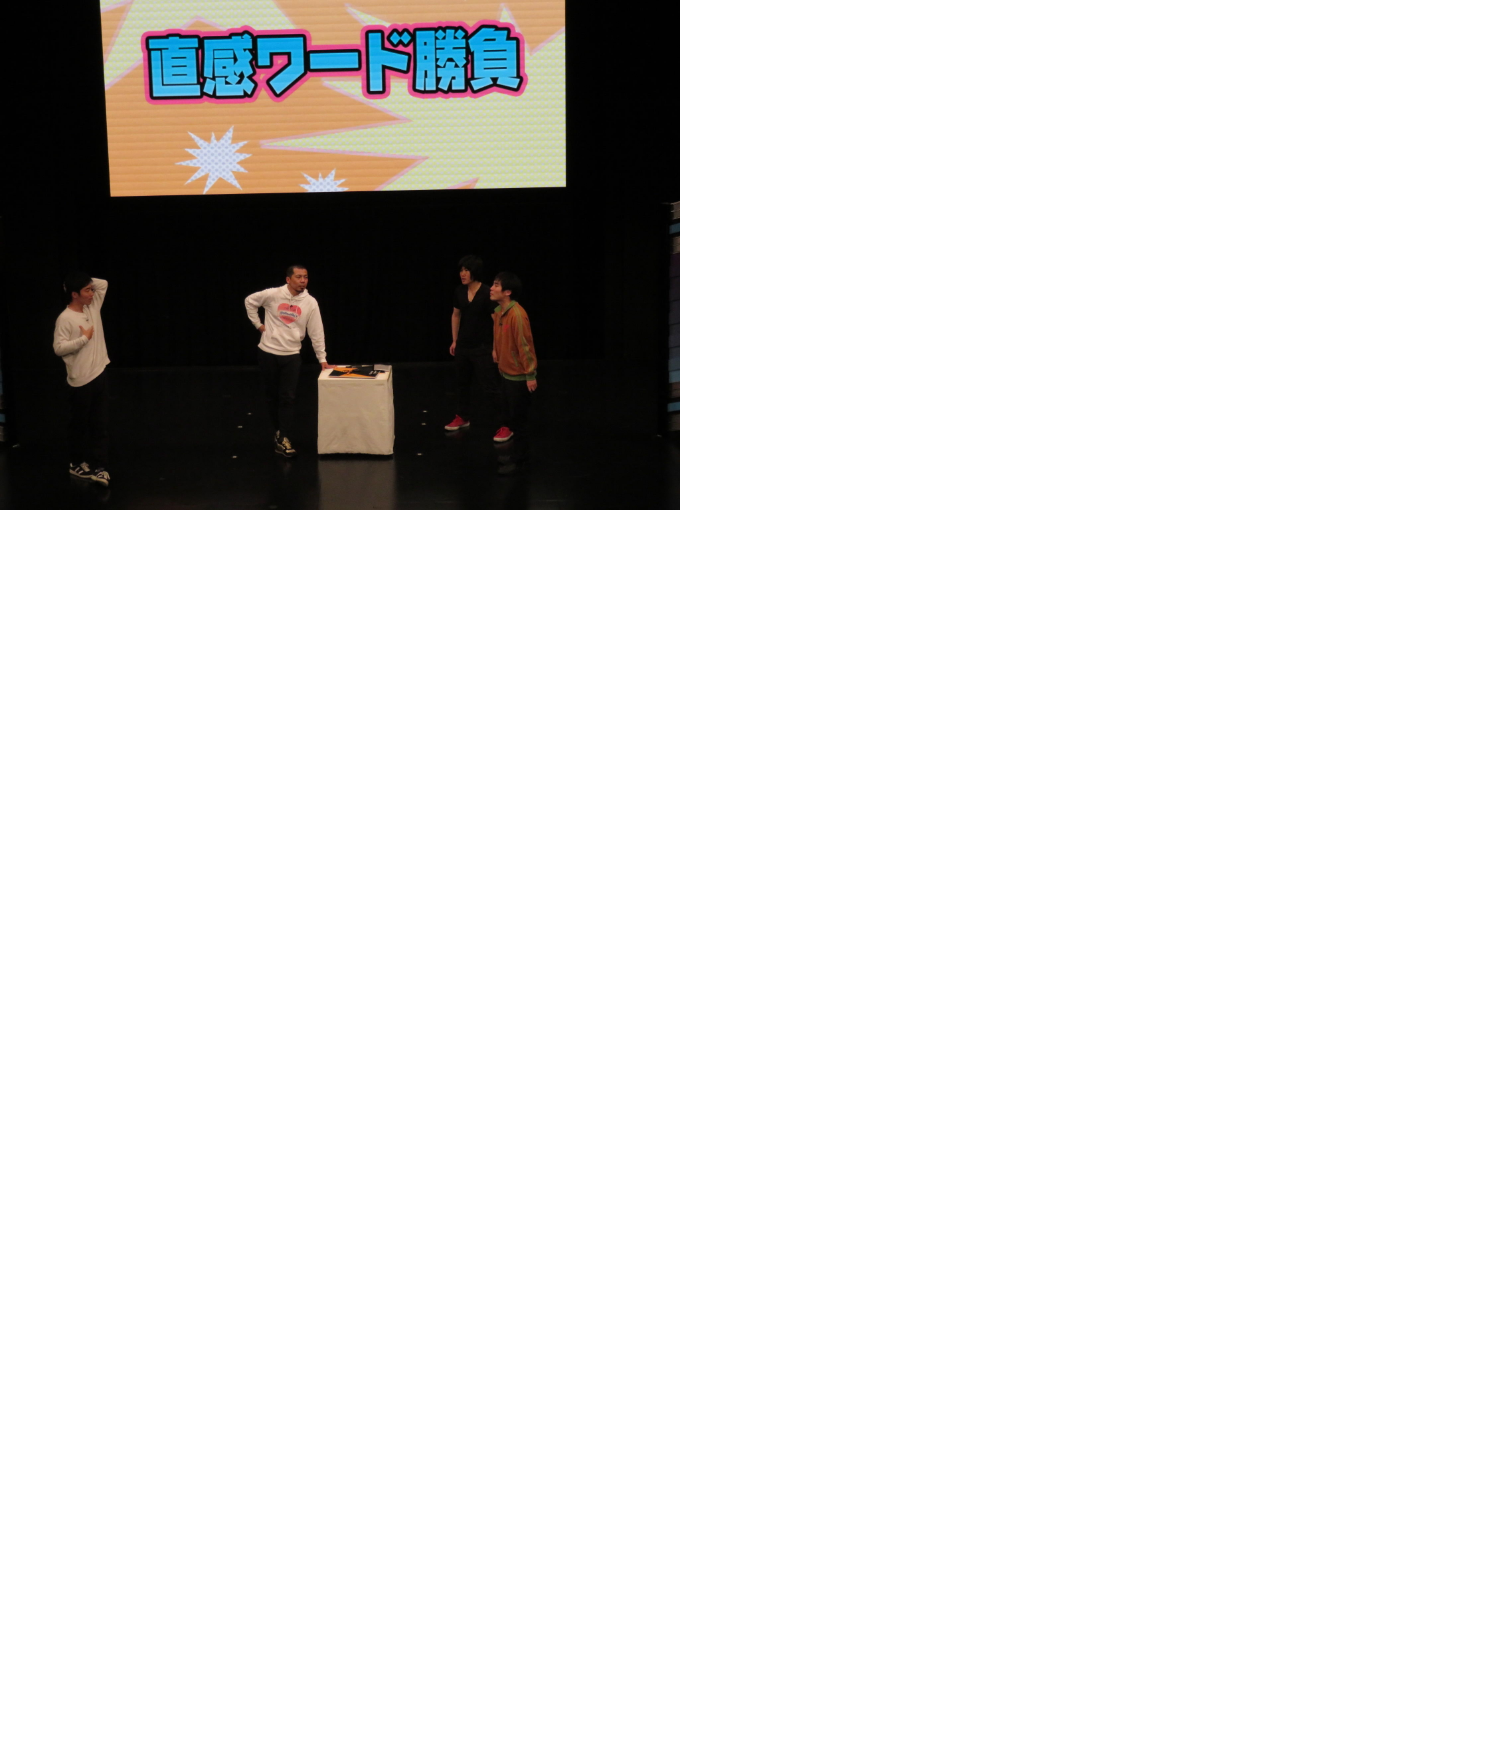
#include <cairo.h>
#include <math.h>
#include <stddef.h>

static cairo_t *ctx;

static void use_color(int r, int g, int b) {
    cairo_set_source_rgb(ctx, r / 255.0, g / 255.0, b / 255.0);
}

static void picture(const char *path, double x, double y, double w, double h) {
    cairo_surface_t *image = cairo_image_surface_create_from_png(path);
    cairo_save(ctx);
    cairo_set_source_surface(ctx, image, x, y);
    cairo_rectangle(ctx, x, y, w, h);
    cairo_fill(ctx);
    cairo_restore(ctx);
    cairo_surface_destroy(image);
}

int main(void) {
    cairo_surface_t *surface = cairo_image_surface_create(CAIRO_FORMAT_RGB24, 1489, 1748);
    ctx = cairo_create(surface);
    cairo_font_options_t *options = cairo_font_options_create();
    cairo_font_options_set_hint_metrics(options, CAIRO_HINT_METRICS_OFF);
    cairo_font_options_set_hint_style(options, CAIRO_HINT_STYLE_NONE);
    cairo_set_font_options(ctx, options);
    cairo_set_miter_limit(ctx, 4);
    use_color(255, 255, 255);
    cairo_paint(ctx);
    picture("img1.png", 0, 0, 680, 510);
    cairo_surface_write_to_png(surface, "result.png");
    cairo_font_options_destroy(options);
    cairo_destroy(ctx);
    cairo_surface_destroy(surface);
    return 0;
}
